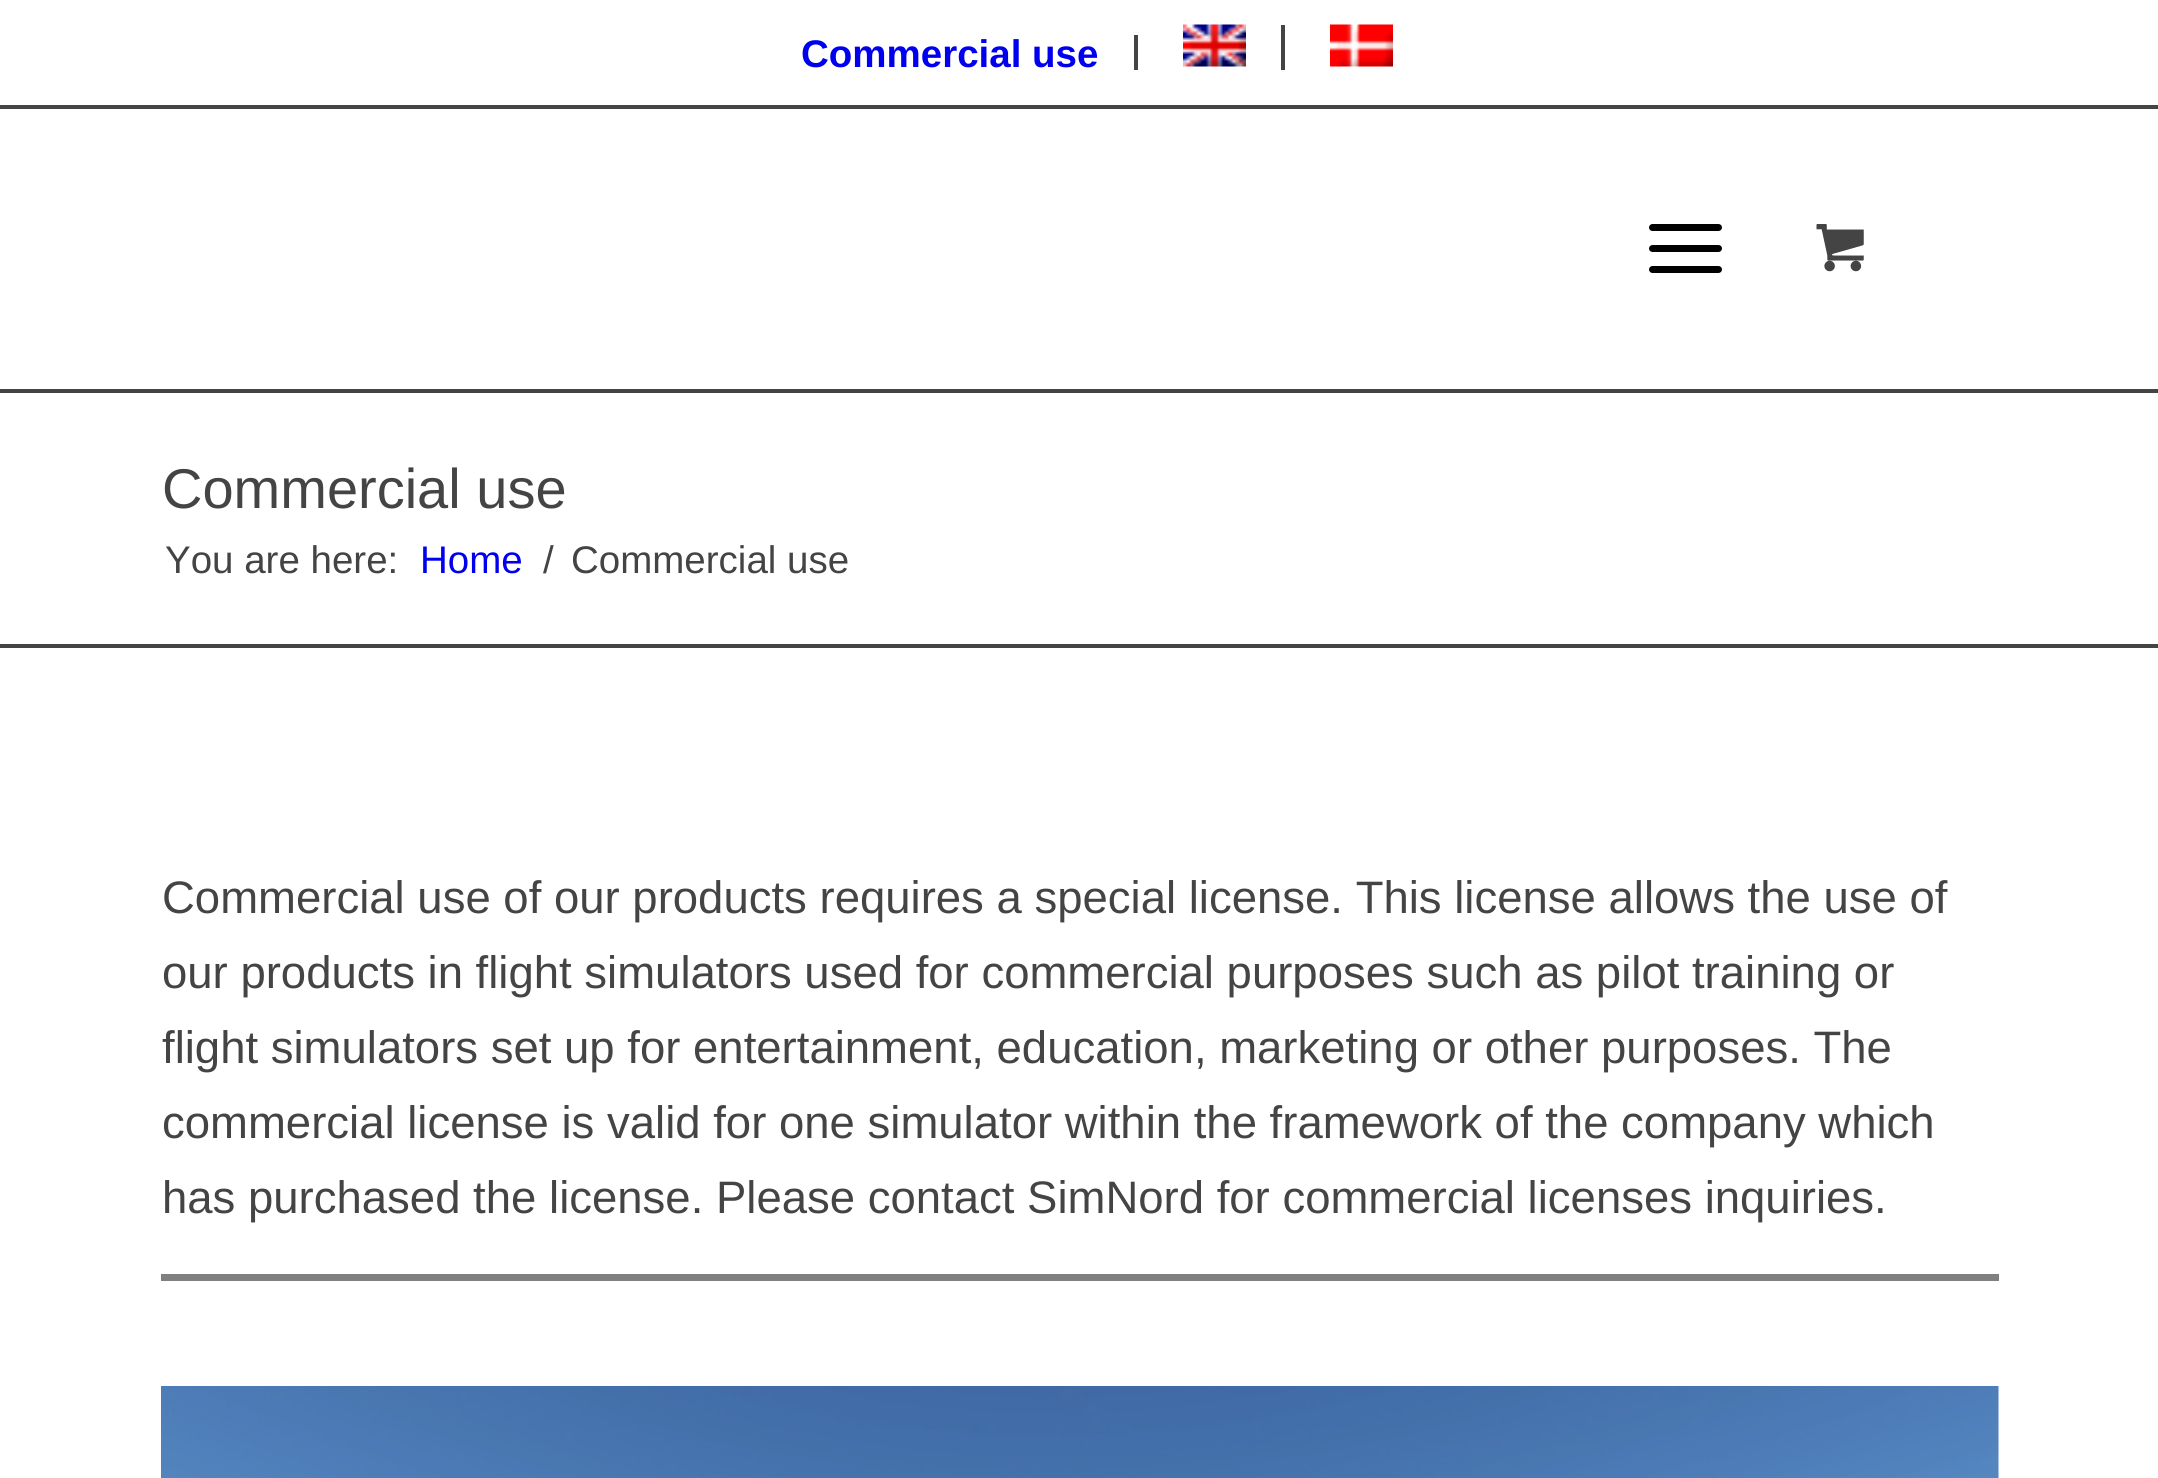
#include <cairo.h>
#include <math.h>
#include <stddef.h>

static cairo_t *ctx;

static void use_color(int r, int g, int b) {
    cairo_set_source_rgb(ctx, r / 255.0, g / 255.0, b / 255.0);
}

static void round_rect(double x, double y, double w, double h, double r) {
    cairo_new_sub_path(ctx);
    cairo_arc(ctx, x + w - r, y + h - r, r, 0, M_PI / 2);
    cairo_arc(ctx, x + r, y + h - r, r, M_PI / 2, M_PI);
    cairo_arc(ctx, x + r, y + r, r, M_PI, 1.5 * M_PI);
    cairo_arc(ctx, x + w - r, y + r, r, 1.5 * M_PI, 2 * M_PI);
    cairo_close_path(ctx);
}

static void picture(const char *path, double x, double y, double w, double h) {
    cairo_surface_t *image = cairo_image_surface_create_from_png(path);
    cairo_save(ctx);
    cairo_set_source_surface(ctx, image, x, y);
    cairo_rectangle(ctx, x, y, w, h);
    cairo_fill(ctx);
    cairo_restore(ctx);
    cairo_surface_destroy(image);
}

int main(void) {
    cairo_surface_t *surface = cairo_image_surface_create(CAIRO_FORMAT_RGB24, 2158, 1478);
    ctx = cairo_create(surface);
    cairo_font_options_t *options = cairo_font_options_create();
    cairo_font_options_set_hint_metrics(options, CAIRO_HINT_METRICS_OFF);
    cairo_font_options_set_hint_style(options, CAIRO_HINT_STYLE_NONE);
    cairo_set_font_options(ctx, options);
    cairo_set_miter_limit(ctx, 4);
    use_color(255, 255, 255);
    cairo_paint(ctx);
    use_color(68, 68, 68);
    cairo_rectangle(ctx, 1134, 35, 4, 35);
    cairo_fill(ctx);
    cairo_select_font_face(ctx, "Liberation Sans", CAIRO_FONT_SLANT_NORMAL, CAIRO_FONT_WEIGHT_BOLD);
    cairo_set_font_size(ctx, 38.5);
    use_color(0, 0, 238);
    cairo_move_to(ctx, 801, 67);
    cairo_show_text(ctx, "Commercial use");
    use_color(68, 68, 68);
    cairo_rectangle(ctx, 1281, 25, 4, 45);
    cairo_fill(ctx);
    picture("img1.png", 1183, 24, 63, 43);
    picture("img2.png", 1330, 24, 63, 43);
    cairo_rectangle(ctx, 0, 105, 2158, 4);
    cairo_fill(ctx);
    cairo_rectangle(ctx, 0, 389, 2158, 4);
    cairo_fill(ctx);
    use_color(0, 0, 0);
    round_rect(1649, 245, 73, 7, 3.5);
    cairo_fill(ctx);
    round_rect(1649, 224, 73, 7, 3.5);
    cairo_fill(ctx);
    round_rect(1649, 266, 73, 7, 3.5);
    cairo_fill(ctx);
    picture("img3.png", 1816, 224, 48, 48);
    cairo_select_font_face(ctx, "Liberation Sans", CAIRO_FONT_SLANT_NORMAL, CAIRO_FONT_WEIGHT_NORMAL);
    cairo_set_font_size(ctx, 56);
    use_color(68, 68, 68);
    cairo_move_to(ctx, 162, 508);
    cairo_show_text(ctx, "Commercial use");
    cairo_set_font_size(ctx, 38.5);
    cairo_move_to(ctx, 165, 573);
    cairo_show_text(ctx, "You are here:");
    use_color(0, 0, 238);
    cairo_move_to(ctx, 420, 573);
    cairo_show_text(ctx, "Home");
    use_color(68, 68, 68);
    cairo_move_to(ctx, 543, 573);
    cairo_show_text(ctx, "/");
    cairo_move_to(ctx, 571, 573);
    cairo_show_text(ctx, "Commercial use");
    cairo_rectangle(ctx, 0, 644, 2158, 4);
    cairo_fill(ctx);
    cairo_set_font_size(ctx, 45.5);
    cairo_move_to(ctx, 162, 913);
    cairo_show_text(ctx, "Commercial use of our products requires a special license. This license allows the use of");
    cairo_move_to(ctx, 162, 988);
    cairo_show_text(ctx, "our products in flight simulators used for commercial purposes such as pilot training or");
    cairo_move_to(ctx, 162, 1063);
    cairo_show_text(ctx, "flight simulators set up for entertainment, education, marketing or other purposes. The");
    cairo_move_to(ctx, 162, 1138);
    cairo_show_text(ctx, "commercial license is valid for one simulator within the framework of the company which");
    cairo_move_to(ctx, 162, 1213);
    cairo_show_text(ctx, "has purchased the license. Please contact SimNord for commercial licenses inquiries.");
    use_color(128, 128, 128);
    cairo_rectangle(ctx, 161, 1274, 1838, 7);
    cairo_fill(ctx);
    picture("img4.png", 161, 1386, 1838, 92);
    cairo_surface_write_to_png(surface, "result.png");
    cairo_font_options_destroy(options);
    cairo_destroy(ctx);
    cairo_surface_destroy(surface);
    return 0;
}
